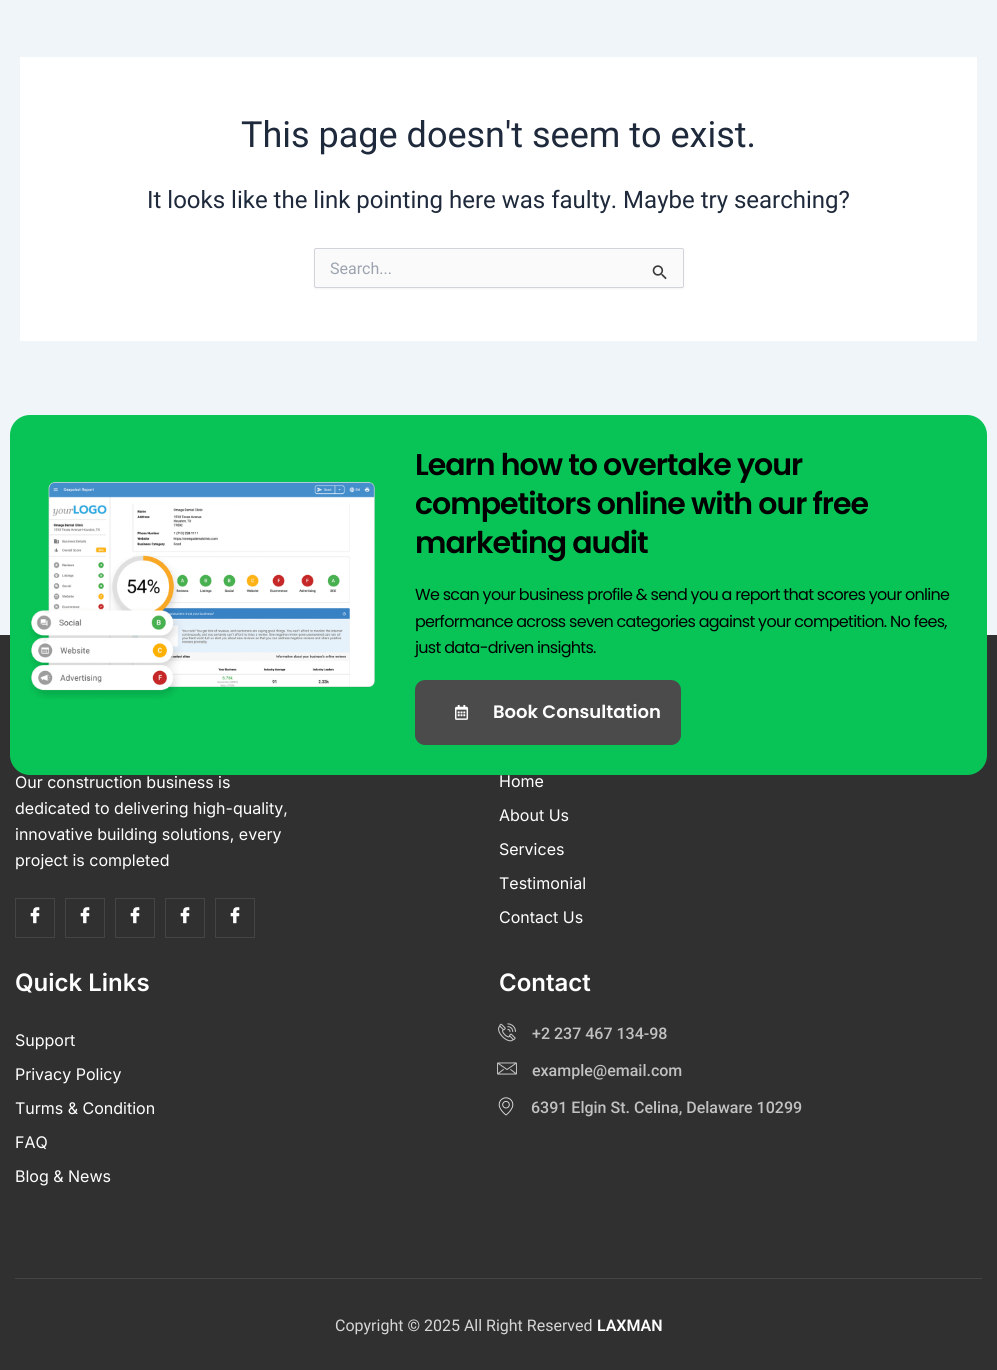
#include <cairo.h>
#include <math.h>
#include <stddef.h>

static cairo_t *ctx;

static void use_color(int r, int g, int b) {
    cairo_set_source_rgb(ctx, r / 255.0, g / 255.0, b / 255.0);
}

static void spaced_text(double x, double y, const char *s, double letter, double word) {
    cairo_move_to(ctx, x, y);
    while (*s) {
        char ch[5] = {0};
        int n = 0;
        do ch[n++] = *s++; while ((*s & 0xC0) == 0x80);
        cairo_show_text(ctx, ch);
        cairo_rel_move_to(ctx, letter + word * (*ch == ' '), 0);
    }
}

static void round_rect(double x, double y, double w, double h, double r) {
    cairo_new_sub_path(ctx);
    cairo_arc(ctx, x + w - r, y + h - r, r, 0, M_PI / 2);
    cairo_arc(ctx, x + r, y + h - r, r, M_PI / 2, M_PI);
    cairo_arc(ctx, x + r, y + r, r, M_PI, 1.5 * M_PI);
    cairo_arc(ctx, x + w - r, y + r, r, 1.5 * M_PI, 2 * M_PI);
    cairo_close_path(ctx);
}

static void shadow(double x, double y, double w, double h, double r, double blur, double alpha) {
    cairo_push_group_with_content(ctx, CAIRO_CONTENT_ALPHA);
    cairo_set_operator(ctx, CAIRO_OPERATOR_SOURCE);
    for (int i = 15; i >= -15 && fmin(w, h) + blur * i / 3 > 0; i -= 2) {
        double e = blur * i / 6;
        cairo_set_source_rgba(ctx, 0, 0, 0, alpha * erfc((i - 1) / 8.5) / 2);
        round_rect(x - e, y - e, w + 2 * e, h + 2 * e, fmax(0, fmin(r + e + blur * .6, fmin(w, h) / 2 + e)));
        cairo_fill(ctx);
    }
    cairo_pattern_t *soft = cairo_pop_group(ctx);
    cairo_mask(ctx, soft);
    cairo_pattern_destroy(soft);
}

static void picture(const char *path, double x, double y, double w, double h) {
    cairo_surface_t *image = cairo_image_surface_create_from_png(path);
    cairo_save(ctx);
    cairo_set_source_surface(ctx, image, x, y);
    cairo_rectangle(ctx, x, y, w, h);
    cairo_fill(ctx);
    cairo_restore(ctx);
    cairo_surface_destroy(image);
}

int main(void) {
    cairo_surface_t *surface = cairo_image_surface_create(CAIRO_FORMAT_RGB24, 997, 1370);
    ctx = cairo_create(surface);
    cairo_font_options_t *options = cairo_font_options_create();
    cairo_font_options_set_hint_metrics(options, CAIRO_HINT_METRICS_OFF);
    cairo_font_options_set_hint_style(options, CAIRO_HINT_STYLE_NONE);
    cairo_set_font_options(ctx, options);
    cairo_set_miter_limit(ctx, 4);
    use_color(240, 245, 250);
    cairo_paint(ctx);
    use_color(255, 255, 255);
    cairo_rectangle(ctx, 20, 57, 957, 284);
    cairo_fill(ctx);
    cairo_select_font_face(ctx, "Roboto", CAIRO_FONT_SLANT_NORMAL, CAIRO_FONT_WEIGHT_NORMAL);
    cairo_set_font_size(ctx, 36);
    use_color(30, 41, 59);
    cairo_move_to(ctx, 241, 147);
    cairo_show_text(ctx, "This page doesn't seem to exist.");
    cairo_set_font_size(ctx, 24);
    cairo_move_to(ctx, 147, 208);
    cairo_show_text(ctx, "It looks like the link pointing here was faulty. Maybe try searching?");
    use_color(0, 0, 0);
    shadow(314, 249, 370, 40, 2, 1, 0.05);
    use_color(250, 250, 250);
    round_rect(314.5, 248.5, 369, 39, 1.5);
    cairo_fill_preserve(ctx);
    use_color(209, 213, 219);
    cairo_set_line_width(ctx, 1);
    cairo_stroke(ctx);
    cairo_set_font_size(ctx, 16);
    use_color(156, 163, 175);
    cairo_move_to(ctx, 330, 274);
    cairo_show_text(ctx, "Search...");
    picture("img1.png", 652, 265, 15, 15);
    use_color(48, 48, 48);
    cairo_rectangle(ctx, 0, 635, 997, 735);
    cairo_fill(ctx);
    use_color(8, 196, 86);
    round_rect(10, 415, 977, 360, 20);
    cairo_fill(ctx);
    picture("img2.png", 29, 482, 346, 217);
    cairo_select_font_face(ctx, "Poppins SemiBold", CAIRO_FONT_SLANT_NORMAL, CAIRO_FONT_WEIGHT_NORMAL);
    cairo_set_font_size(ctx, 30);
    use_color(0, 0, 0);
    spaced_text(415, 475, "Learn how to overtake your", -1, 0);
    spaced_text(415, 514, "competitors online with our free", -1, 0);
    spaced_text(415, 553, "marketing audit", -1, 0);
    cairo_select_font_face(ctx, "Poppins", CAIRO_FONT_SLANT_NORMAL, CAIRO_FONT_WEIGHT_NORMAL);
    cairo_set_font_size(ctx, 16);
    spaced_text(415, 600, "We scan your business profile & send you a report that scores your online", -0.7, 0);
    spaced_text(415, 627, "performance across seven categories against your competition. No fees,", -0.7, 0);
    spaced_text(415, 653, "just data-driven insights.", -0.7, 0);
    use_color(75, 75, 75);
    round_rect(415, 680, 266, 65, 10);
    cairo_fill(ctx);
    picture("img3.png", 455, 705, 14, 15);
    cairo_select_font_face(ctx, "Poppins SemiBold", CAIRO_FONT_SLANT_NORMAL, CAIRO_FONT_WEIGHT_NORMAL);
    cairo_set_font_size(ctx, 18);
    use_color(255, 255, 255);
    cairo_move_to(ctx, 493, 718);
    cairo_show_text(ctx, "Book Consultation");
    cairo_select_font_face(ctx, "Inter", CAIRO_FONT_SLANT_NORMAL, CAIRO_FONT_WEIGHT_NORMAL);
    cairo_set_font_size(ctx, 16);
    cairo_move_to(ctx, 15, 788);
    cairo_show_text(ctx, "Our construction business is");
    cairo_move_to(ctx, 15, 814);
    cairo_show_text(ctx, "dedicated to delivering high-quality,");
    cairo_move_to(ctx, 15, 840);
    cairo_show_text(ctx, "innovative building solutions, every");
    cairo_move_to(ctx, 15, 866);
    cairo_show_text(ctx, "project is completed");
    cairo_rectangle(ctx, 15.5, 898.5, 39, 39);
    use_color(69, 69, 69);
    cairo_stroke(ctx);
    picture("img4.png", 30, 907, 10, 17);
    cairo_rectangle(ctx, 65.5, 898.5, 39, 39);
    cairo_stroke(ctx);
    picture("img4.png", 80, 907, 10, 17);
    cairo_rectangle(ctx, 115.5, 898.5, 39, 39);
    cairo_stroke(ctx);
    picture("img4.png", 130, 907, 10, 17);
    cairo_rectangle(ctx, 165.5, 898.5, 39, 39);
    cairo_stroke(ctx);
    picture("img4.png", 180, 907, 10, 17);
    cairo_rectangle(ctx, 215.5, 898.5, 39, 39);
    cairo_stroke(ctx);
    picture("img4.png", 230, 907, 10, 17);
    use_color(255, 255, 255);
    cairo_move_to(ctx, 499, 787);
    cairo_show_text(ctx, "Home");
    cairo_move_to(ctx, 499, 821);
    cairo_show_text(ctx, "About Us");
    cairo_move_to(ctx, 499, 855);
    cairo_show_text(ctx, "Services");
    cairo_move_to(ctx, 499, 889);
    cairo_show_text(ctx, "Testimonial");
    cairo_move_to(ctx, 499, 923);
    cairo_show_text(ctx, "Contact Us");
    cairo_select_font_face(ctx, "Inter SemiBold", CAIRO_FONT_SLANT_NORMAL, CAIRO_FONT_WEIGHT_NORMAL);
    cairo_set_font_size(ctx, 24);
    cairo_move_to(ctx, 15, 991);
    cairo_show_text(ctx, "Quick Links");
    cairo_select_font_face(ctx, "Inter", CAIRO_FONT_SLANT_NORMAL, CAIRO_FONT_WEIGHT_NORMAL);
    cairo_set_font_size(ctx, 16);
    cairo_move_to(ctx, 15, 1046);
    cairo_show_text(ctx, "Support");
    cairo_move_to(ctx, 15, 1080);
    cairo_show_text(ctx, "Privacy Policy");
    cairo_move_to(ctx, 15, 1114);
    cairo_show_text(ctx, "Turms & Condition");
    cairo_move_to(ctx, 15, 1148);
    cairo_show_text(ctx, "FAQ");
    cairo_move_to(ctx, 15, 1182);
    cairo_show_text(ctx, "Blog & News");
    cairo_select_font_face(ctx, "Inter SemiBold", CAIRO_FONT_SLANT_NORMAL, CAIRO_FONT_WEIGHT_NORMAL);
    cairo_set_font_size(ctx, 24);
    cairo_move_to(ctx, 499, 991);
    cairo_show_text(ctx, "Contact");
    picture("img5.png", 498, 1023, 18, 19);
    cairo_select_font_face(ctx, "Roboto Medium", CAIRO_FONT_SLANT_NORMAL, CAIRO_FONT_WEIGHT_NORMAL);
    cairo_set_font_size(ctx, 16);
    use_color(193, 193, 193);
    cairo_move_to(ctx, 532, 1039);
    cairo_show_text(ctx, "+2 237 467 134-98");
    picture("img6.png", 497, 1062, 20, 13);
    cairo_move_to(ctx, 532, 1076);
    cairo_show_text(ctx, "example@email.com");
    picture("img7.png", 498, 1097, 16, 19);
    cairo_move_to(ctx, 531, 1113);
    cairo_show_text(ctx, "6391 Elgin St. Celina, Delaware 10299");
    use_color(69, 69, 69);
    cairo_rectangle(ctx, 15, 1278, 967, 1);
    cairo_fill(ctx);
    cairo_select_font_face(ctx, "Roboto", CAIRO_FONT_SLANT_NORMAL, CAIRO_FONT_WEIGHT_NORMAL);
    use_color(214, 214, 214);
    cairo_move_to(ctx, 335, 1331);
    cairo_show_text(ctx, "Copyright © 2025 All Right Reserved");
    cairo_select_font_face(ctx, "Roboto SemiBold", CAIRO_FONT_SLANT_NORMAL, CAIRO_FONT_WEIGHT_NORMAL);
    use_color(255, 255, 255);
    cairo_move_to(ctx, 597, 1331);
    cairo_show_text(ctx, "LAXMAN");
    cairo_surface_write_to_png(surface, "result.png");
    cairo_font_options_destroy(options);
    cairo_destroy(ctx);
    cairo_surface_destroy(surface);
    return 0;
}
